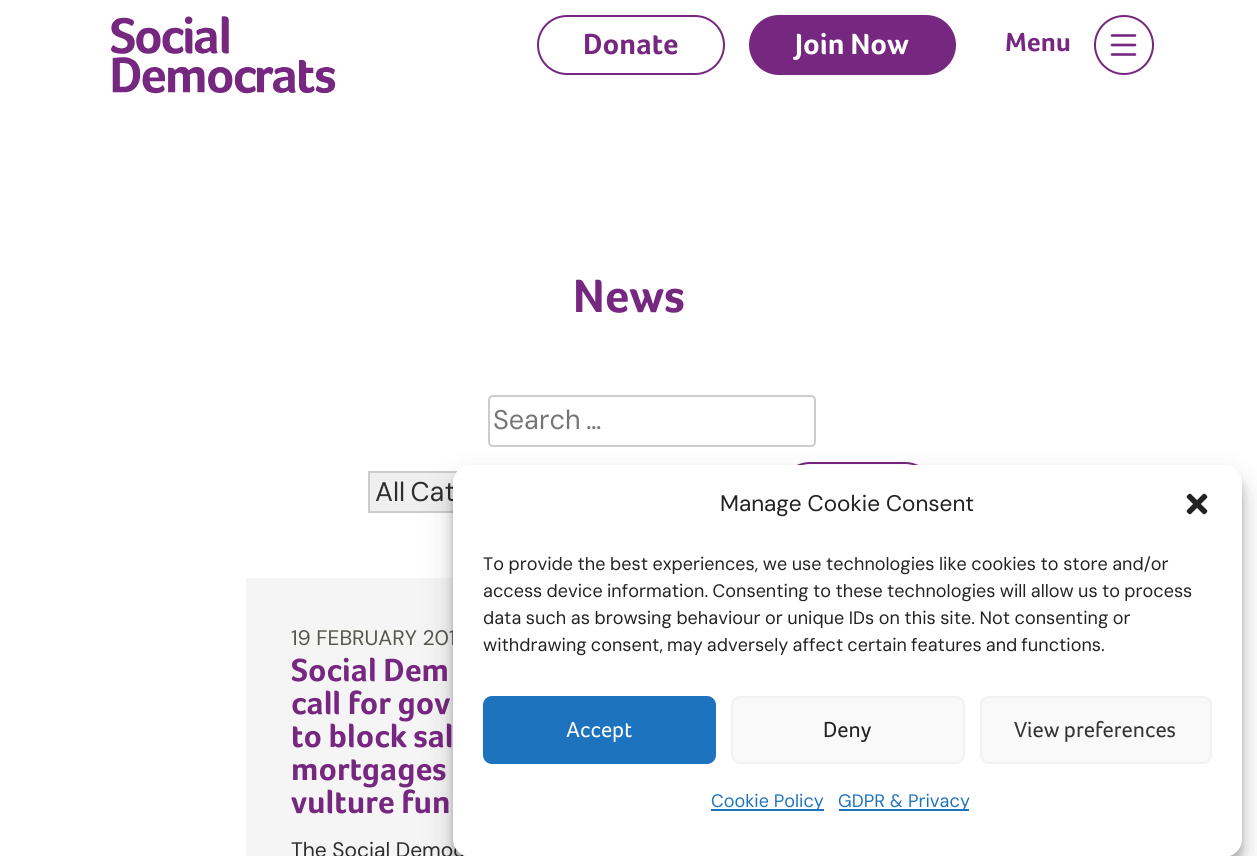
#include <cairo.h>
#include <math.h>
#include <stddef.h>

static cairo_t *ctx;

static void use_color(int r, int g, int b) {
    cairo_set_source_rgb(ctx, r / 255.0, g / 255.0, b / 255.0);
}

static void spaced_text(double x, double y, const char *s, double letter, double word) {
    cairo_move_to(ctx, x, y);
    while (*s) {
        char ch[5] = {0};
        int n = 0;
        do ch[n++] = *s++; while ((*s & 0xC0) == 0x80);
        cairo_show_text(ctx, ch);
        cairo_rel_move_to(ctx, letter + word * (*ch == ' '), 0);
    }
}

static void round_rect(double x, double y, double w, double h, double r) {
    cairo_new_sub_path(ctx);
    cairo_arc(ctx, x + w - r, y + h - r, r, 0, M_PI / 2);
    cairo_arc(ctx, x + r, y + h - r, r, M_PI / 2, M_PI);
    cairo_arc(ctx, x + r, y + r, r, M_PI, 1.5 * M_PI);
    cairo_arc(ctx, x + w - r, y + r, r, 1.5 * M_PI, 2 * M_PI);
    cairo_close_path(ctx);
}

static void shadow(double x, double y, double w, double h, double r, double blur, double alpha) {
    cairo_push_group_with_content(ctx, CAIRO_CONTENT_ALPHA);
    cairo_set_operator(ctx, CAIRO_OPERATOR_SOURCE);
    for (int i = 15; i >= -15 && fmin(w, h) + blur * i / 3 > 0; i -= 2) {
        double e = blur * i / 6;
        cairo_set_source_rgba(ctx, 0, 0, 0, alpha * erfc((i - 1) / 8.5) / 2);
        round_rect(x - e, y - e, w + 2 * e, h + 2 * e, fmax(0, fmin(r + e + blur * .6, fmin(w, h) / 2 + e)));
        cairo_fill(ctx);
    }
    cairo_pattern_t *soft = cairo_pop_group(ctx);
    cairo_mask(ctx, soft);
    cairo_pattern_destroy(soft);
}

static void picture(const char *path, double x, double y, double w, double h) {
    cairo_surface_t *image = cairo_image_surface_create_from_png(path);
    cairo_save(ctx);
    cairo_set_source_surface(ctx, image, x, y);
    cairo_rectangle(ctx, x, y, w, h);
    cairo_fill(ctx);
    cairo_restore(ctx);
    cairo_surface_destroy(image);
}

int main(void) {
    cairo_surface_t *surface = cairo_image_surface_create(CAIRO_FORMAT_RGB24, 1257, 856);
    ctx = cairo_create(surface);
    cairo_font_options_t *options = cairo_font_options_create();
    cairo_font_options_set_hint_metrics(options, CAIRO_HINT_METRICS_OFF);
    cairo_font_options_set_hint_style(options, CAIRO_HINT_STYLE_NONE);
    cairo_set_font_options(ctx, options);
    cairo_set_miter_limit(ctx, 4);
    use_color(255, 255, 255);
    cairo_paint(ctx);
    picture("img1.png", 111, 16, 225, 78);
    round_rect(538, 16, 186, 58, 29);
    use_color(118, 39, 127);
    cairo_stroke(ctx);
    cairo_select_font_face(ctx, "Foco", CAIRO_FONT_SLANT_NORMAL, CAIRO_FONT_WEIGHT_BOLD);
    cairo_set_font_size(ctx, 30);
    cairo_move_to(ctx, 583, 54);
    cairo_show_text(ctx, "Donate");
    round_rect(750, 16, 205, 58, 29);
    cairo_fill_preserve(ctx);
    cairo_stroke(ctx);
    use_color(255, 255, 255);
    cairo_move_to(ctx, 795, 54);
    cairo_show_text(ctx, "Join Now");
    cairo_set_font_size(ctx, 27);
    use_color(118, 39, 127);
    cairo_move_to(ctx, 1005, 51);
    cairo_show_text(ctx, "Menu");
    cairo_new_path(ctx);
    cairo_arc(ctx, 1124, 45, 29, 0, 2 * M_PI);
    cairo_stroke(ctx);
    cairo_new_path(ctx);
    cairo_move_to(ctx, 1112, 35.5);
    cairo_line_to(ctx, 1135, 35.5);
    cairo_move_to(ctx, 1112, 45);
    cairo_line_to(ctx, 1135, 45);
    cairo_move_to(ctx, 1135, 54.5);
    cairo_line_to(ctx, 1112, 54.5);
    cairo_set_line_width(ctx, 2.6);
    cairo_set_line_cap(ctx, CAIRO_LINE_CAP_ROUND);
    cairo_stroke(ctx);
    cairo_set_font_size(ctx, 48);
    cairo_move_to(ctx, 573, 312);
    cairo_show_text(ctx, "News");
    round_rect(489, 396, 326, 50, 4);
    use_color(204, 204, 204);
    cairo_set_line_width(ctx, 2);
    cairo_set_line_cap(ctx, CAIRO_LINE_CAP_BUTT);
    cairo_stroke(ctx);
    cairo_select_font_face(ctx, "DM Sans", CAIRO_FONT_SLANT_NORMAL, CAIRO_FONT_WEIGHT_NORMAL);
    cairo_set_font_size(ctx, 27);
    use_color(117, 117, 117);
    spaced_text(493, 429, "Search …", 0, -2);
    use_color(239, 239, 239);
    cairo_rectangle(ctx, 370, 473, 86, 38);
    cairo_fill(ctx);
    cairo_rectangle(ctx, 369, 472, 395, 40);
    use_color(204, 204, 204);
    cairo_stroke(ctx);
    use_color(45, 45, 45);
    spaced_text(375, 501, "All Cat", 0, -2);
    round_rect(781, 463, 153, 58, 29);
    use_color(118, 39, 127);
    cairo_stroke(ctx);
    use_color(245, 245, 245);
    cairo_rectangle(ctx, 246, 578, 219, 278);
    cairo_fill(ctx);
    cairo_select_font_face(ctx, "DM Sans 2", CAIRO_FONT_SLANT_NORMAL, CAIRO_FONT_WEIGHT_NORMAL);
    cairo_set_font_size(ctx, 21);
    use_color(87, 86, 78);
    cairo_move_to(ctx, 291, 645);
    cairo_show_text(ctx, "19 FEBRUARY 201");
    cairo_select_font_face(ctx, "Foco", CAIRO_FONT_SLANT_NORMAL, CAIRO_FONT_WEIGHT_BOLD);
    cairo_set_font_size(ctx, 33);
    use_color(118, 39, 127);
    cairo_move_to(ctx, 291, 681);
    cairo_show_text(ctx, "Social Dem");
    cairo_move_to(ctx, 291, 714);
    cairo_show_text(ctx, "call for gov");
    cairo_move_to(ctx, 291, 747);
    cairo_show_text(ctx, "to block sal");
    cairo_move_to(ctx, 291, 780);
    cairo_show_text(ctx, "mortgages");
    cairo_move_to(ctx, 291, 813);
    cairo_show_text(ctx, "vulture fun");
    cairo_select_font_face(ctx, "DM Sans 2", CAIRO_FONT_SLANT_NORMAL, CAIRO_FONT_WEIGHT_NORMAL);
    cairo_set_font_size(ctx, 21);
    use_color(45, 45, 45);
    cairo_move_to(ctx, 291, 857);
    cairo_show_text(ctx, "The Social Democ");
    use_color(0, 0, 0);
    shadow(453, 474, 789, 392, 18, 4.5, 0.23);
    shadow(453, 480, 789, 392, 18, 15, 0.19);
    use_color(255, 255, 255);
    round_rect(453, 465, 789, 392, 18);
    cairo_fill(ctx);
    cairo_select_font_face(ctx, "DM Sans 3", CAIRO_FONT_SLANT_NORMAL, CAIRO_FONT_WEIGHT_NORMAL);
    cairo_set_font_size(ctx, 22.5);
    use_color(34, 34, 34);
    cairo_move_to(ctx, 720, 511);
    cairo_show_text(ctx, "Manage Cookie Consent");
    picture("img2.png", 1186, 493, 22, 22);
    cairo_select_font_face(ctx, "DM Sans", CAIRO_FONT_SLANT_NORMAL, CAIRO_FONT_WEIGHT_NORMAL);
    cairo_set_font_size(ctx, 18);
    spaced_text(483, 570, "To provide the best experiences, we use technologies like cookies to store and/or", 0, -0.25);
    spaced_text(483, 597, "access device information. Consenting to these technologies will allow us to process", 0, -0.5);
    spaced_text(483, 624, "data such as browsing behaviour or unique IDs on this site. Not consenting or", 0, -0.3);
    spaced_text(483, 651, "withdrawing consent, may adversely affect certain features and functions.", 0, -0.75);
    use_color(30, 115, 190);
    round_rect(484, 697, 231, 66, 8);
    cairo_fill_preserve(ctx);
    cairo_stroke(ctx);
    cairo_select_font_face(ctx, "Foco", CAIRO_FONT_SLANT_NORMAL, CAIRO_FONT_WEIGHT_NORMAL);
    cairo_set_font_size(ctx, 22.5);
    use_color(255, 255, 255);
    cairo_move_to(ctx, 566, 737);
    cairo_show_text(ctx, "Accept");
    use_color(249, 249, 249);
    round_rect(732, 697, 232, 66, 8);
    cairo_fill_preserve(ctx);
    use_color(242, 242, 242);
    cairo_stroke(ctx);
    use_color(34, 34, 34);
    cairo_move_to(ctx, 823, 737);
    cairo_show_text(ctx, "Deny");
    use_color(249, 249, 249);
    round_rect(981, 697, 230, 66, 8);
    cairo_fill_preserve(ctx);
    use_color(242, 242, 242);
    cairo_stroke(ctx);
    use_color(51, 51, 51);
    cairo_move_to(ctx, 1014, 737);
    cairo_show_text(ctx, "View preferences");
    use_color(30, 115, 190);
    cairo_rectangle(ctx, 711, 809, 113, 2);
    cairo_fill(ctx);
    cairo_select_font_face(ctx, "DM Sans", CAIRO_FONT_SLANT_NORMAL, CAIRO_FONT_WEIGHT_NORMAL);
    cairo_set_font_size(ctx, 18);
    cairo_move_to(ctx, 711, 807);
    cairo_show_text(ctx, "Cookie Policy");
    cairo_rectangle(ctx, 839, 809, 130, 2);
    cairo_fill(ctx);
    cairo_move_to(ctx, 838, 807);
    cairo_show_text(ctx, "GDPR & Privacy");
    cairo_surface_write_to_png(surface, "result.png");
    cairo_font_options_destroy(options);
    cairo_destroy(ctx);
    cairo_surface_destroy(surface);
    return 0;
}
